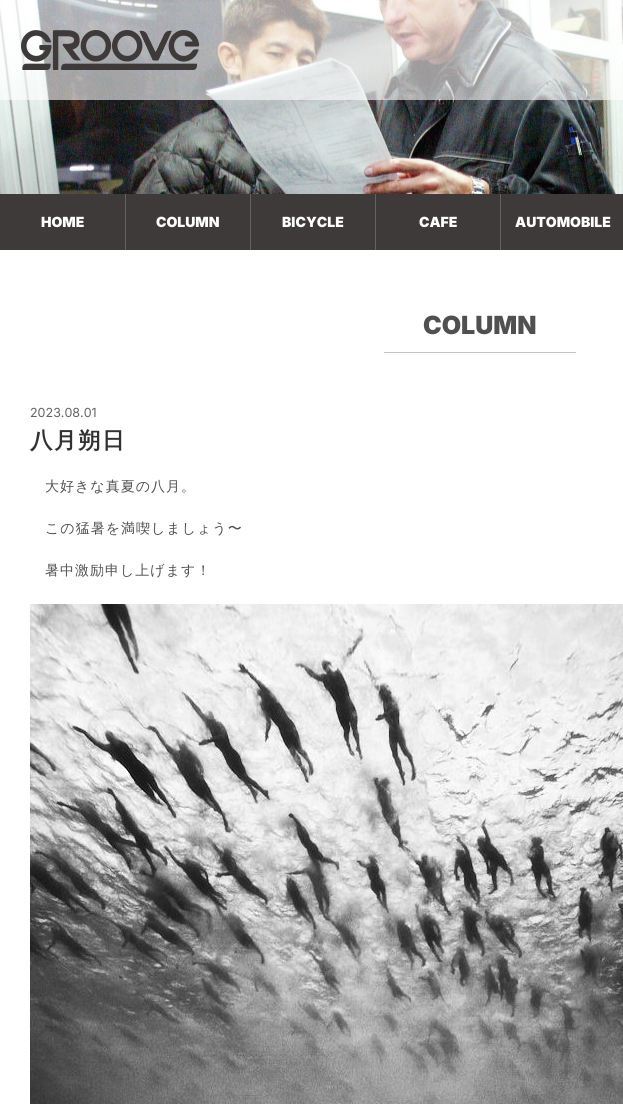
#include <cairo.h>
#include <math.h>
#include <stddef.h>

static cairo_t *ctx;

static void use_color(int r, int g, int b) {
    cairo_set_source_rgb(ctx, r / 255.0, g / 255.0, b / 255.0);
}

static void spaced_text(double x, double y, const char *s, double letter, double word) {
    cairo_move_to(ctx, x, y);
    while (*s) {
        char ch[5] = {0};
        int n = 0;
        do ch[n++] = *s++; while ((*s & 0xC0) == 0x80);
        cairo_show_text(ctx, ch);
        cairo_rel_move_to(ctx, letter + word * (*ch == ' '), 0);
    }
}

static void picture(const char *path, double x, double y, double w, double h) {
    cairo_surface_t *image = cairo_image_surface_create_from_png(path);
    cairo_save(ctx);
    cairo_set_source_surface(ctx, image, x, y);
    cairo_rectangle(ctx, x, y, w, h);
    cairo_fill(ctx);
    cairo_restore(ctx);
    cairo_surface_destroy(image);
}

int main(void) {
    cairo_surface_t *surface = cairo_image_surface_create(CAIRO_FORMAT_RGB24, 623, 1104);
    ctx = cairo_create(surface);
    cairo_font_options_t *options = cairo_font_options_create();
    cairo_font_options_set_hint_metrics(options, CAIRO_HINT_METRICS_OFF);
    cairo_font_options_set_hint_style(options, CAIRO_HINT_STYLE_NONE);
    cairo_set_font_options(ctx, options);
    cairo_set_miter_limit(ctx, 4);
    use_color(255, 255, 255);
    cairo_paint(ctx);
    picture("img1.png", 0, 0, 623, 194);
    cairo_set_source_rgba(ctx, 1, 1, 1, 0.6);
    cairo_rectangle(ctx, 0, 0, 623, 100);
    cairo_fill(ctx);
    picture("img2.png", 21, 30, 179, 40);
    use_color(62, 58, 57);
    cairo_rectangle(ctx, 0, 194, 125, 56);
    cairo_fill(ctx);
    cairo_select_font_face(ctx, "Inter Black", CAIRO_FONT_SLANT_NORMAL, CAIRO_FONT_WEIGHT_NORMAL);
    cairo_set_font_size(ctx, 14);
    use_color(255, 255, 255);
    cairo_move_to(ctx, 41, 227);
    cairo_show_text(ctx, "HOME");
    use_color(62, 58, 57);
    cairo_rectangle(ctx, 126, 194, 124, 56);
    cairo_fill(ctx);
    use_color(101, 97, 97);
    cairo_rectangle(ctx, 125, 194, 1, 56);
    cairo_fill(ctx);
    use_color(255, 255, 255);
    cairo_move_to(ctx, 156, 227);
    cairo_show_text(ctx, "COLUMN");
    use_color(62, 58, 57);
    cairo_rectangle(ctx, 251, 194, 124, 56);
    cairo_fill(ctx);
    use_color(101, 97, 97);
    cairo_rectangle(ctx, 250, 194, 1, 56);
    cairo_fill(ctx);
    use_color(255, 255, 255);
    cairo_move_to(ctx, 282, 227);
    cairo_show_text(ctx, "BICYCLE");
    use_color(62, 58, 57);
    cairo_rectangle(ctx, 376, 194, 124, 56);
    cairo_fill(ctx);
    use_color(101, 97, 97);
    cairo_rectangle(ctx, 375, 194, 1, 56);
    cairo_fill(ctx);
    use_color(255, 255, 255);
    cairo_move_to(ctx, 419, 227);
    cairo_show_text(ctx, "CAFE");
    use_color(62, 58, 57);
    cairo_rectangle(ctx, 501, 194, 122, 56);
    cairo_fill(ctx);
    use_color(101, 97, 97);
    cairo_rectangle(ctx, 500, 194, 1, 56);
    cairo_fill(ctx);
    use_color(255, 255, 255);
    cairo_move_to(ctx, 515, 227);
    cairo_show_text(ctx, "AUTOMOBILE");
    cairo_set_font_size(ctx, 25);
    use_color(80, 80, 80);
    cairo_move_to(ctx, 423, 334);
    cairo_show_text(ctx, "COLUMN");
    use_color(197, 196, 196);
    cairo_rectangle(ctx, 384, 352, 192, 1);
    cairo_fill(ctx);
    cairo_select_font_face(ctx, "Inter", CAIRO_FONT_SLANT_NORMAL, CAIRO_FONT_WEIGHT_NORMAL);
    cairo_set_font_size(ctx, 12.5);
    use_color(100, 100, 100);
    cairo_move_to(ctx, 30, 417);
    cairo_show_text(ctx, "2023.08.01");
    cairo_select_font_face(ctx, "WenQuanYi Zen Hei", CAIRO_FONT_SLANT_NORMAL, CAIRO_FONT_WEIGHT_BOLD);
    cairo_set_font_size(ctx, 22.5);
    use_color(50, 50, 50);
    spaced_text(30, 448, "八月朔日", 1.5, 0);
    cairo_select_font_face(ctx, "WenQuanYi Zen Hei Medium", CAIRO_FONT_SLANT_NORMAL, CAIRO_FONT_WEIGHT_NORMAL);
    cairo_set_font_size(ctx, 14);
    use_color(80, 80, 80);
    spaced_text(45, 491, "大好きな真夏の八月。", 1, 0);
    spaced_text(45, 533, "この猛暑を満喫しましょう〜", 1, 0);
    spaced_text(45, 575, "暑中激励申し上げます！", 1, 0);
    picture("img3.png", 30, 604, 593, 500);
    cairo_surface_write_to_png(surface, "result.png");
    cairo_font_options_destroy(options);
    cairo_destroy(ctx);
    cairo_surface_destroy(surface);
    return 0;
}
